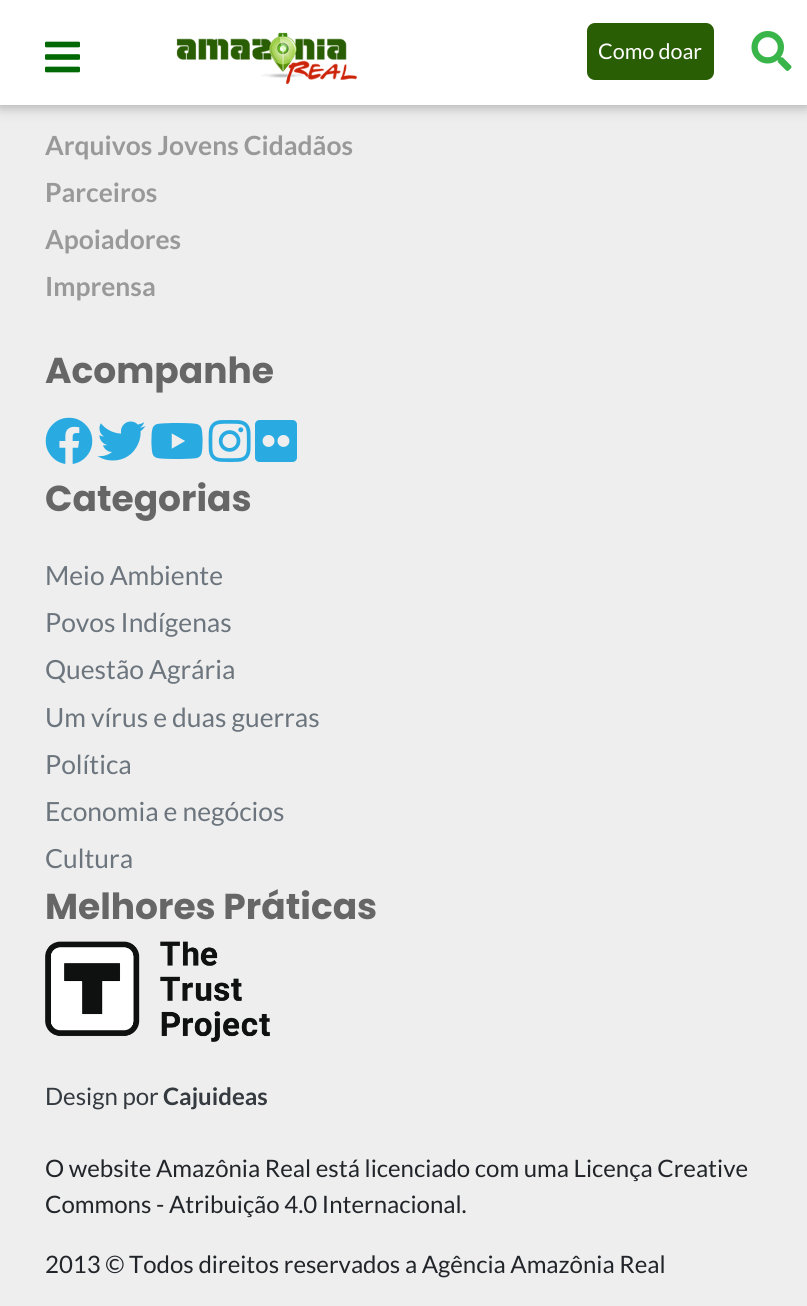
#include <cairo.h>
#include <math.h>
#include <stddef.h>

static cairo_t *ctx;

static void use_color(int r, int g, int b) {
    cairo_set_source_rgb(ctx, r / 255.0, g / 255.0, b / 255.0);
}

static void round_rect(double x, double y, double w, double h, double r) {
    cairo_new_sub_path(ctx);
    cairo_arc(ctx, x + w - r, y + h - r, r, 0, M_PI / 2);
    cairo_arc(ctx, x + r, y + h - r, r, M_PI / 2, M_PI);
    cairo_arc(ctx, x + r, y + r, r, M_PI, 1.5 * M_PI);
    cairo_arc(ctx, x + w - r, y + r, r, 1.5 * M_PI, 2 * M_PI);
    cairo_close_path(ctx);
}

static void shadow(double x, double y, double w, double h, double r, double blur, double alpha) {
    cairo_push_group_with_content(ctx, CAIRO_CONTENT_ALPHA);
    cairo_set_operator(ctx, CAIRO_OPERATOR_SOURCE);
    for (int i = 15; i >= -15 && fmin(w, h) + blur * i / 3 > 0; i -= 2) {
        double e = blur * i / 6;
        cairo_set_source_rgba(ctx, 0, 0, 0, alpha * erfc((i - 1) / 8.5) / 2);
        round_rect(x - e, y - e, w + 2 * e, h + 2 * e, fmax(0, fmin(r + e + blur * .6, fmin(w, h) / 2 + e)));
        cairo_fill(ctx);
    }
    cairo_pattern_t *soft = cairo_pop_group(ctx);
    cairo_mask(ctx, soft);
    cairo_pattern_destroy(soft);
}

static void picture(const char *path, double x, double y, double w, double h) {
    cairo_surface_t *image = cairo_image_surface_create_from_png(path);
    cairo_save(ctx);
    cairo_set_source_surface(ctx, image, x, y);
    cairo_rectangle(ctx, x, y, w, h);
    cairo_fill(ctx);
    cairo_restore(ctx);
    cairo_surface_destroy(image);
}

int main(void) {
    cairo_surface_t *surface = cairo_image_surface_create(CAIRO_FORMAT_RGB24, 807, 1306);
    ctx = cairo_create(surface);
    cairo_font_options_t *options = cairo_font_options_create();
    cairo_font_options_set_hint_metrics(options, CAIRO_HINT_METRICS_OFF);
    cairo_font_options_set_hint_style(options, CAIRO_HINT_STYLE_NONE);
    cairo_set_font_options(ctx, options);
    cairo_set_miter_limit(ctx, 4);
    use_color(238, 238, 238);
    cairo_paint(ctx);
    use_color(153, 153, 153);
    shadow(0, 0, 807, 105, 0, 7.5, 1);
    use_color(255, 255, 255);
    cairo_rectangle(ctx, 0, 0, 807, 105);
    cairo_fill(ctx);
    picture("img1.png", 45, 41, 35, 32);
    picture("img2.png", 176, 32, 181, 53);
    use_color(42, 94, 4);
    round_rect(587, 23, 127, 57, 8);
    cairo_fill(ctx);
    cairo_select_font_face(ctx, "Lato", CAIRO_FONT_SLANT_NORMAL, CAIRO_FONT_WEIGHT_NORMAL);
    cairo_set_font_size(ctx, 21.5);
    use_color(255, 255, 255);
    cairo_move_to(ctx, 598, 59);
    cairo_show_text(ctx, "Como doar");
    picture("img3.png", 751, 31, 41, 40);
    cairo_select_font_face(ctx, "Lato", CAIRO_FONT_SLANT_NORMAL, CAIRO_FONT_WEIGHT_BOLD);
    cairo_set_font_size(ctx, 26.4);
    use_color(153, 153, 153);
    cairo_move_to(ctx, 45, 155);
    cairo_show_text(ctx, "Arquivos Jovens Cidadãos");
    cairo_move_to(ctx, 45, 202);
    cairo_show_text(ctx, "Parceiros");
    cairo_move_to(ctx, 45, 249);
    cairo_show_text(ctx, "Apoiadores");
    cairo_move_to(ctx, 45, 296);
    cairo_show_text(ctx, "Imprensa");
    cairo_select_font_face(ctx, "Poppins", CAIRO_FONT_SLANT_NORMAL, CAIRO_FONT_WEIGHT_BOLD);
    cairo_set_font_size(ctx, 36);
    use_color(102, 102, 102);
    cairo_move_to(ctx, 45, 383);
    cairo_show_text(ctx, "Acompanhe");
    picture("img4.png", 45, 417, 48, 47);
    picture("img5.png", 97, 421, 49, 40);
    picture("img6.png", 151, 423, 52, 36);
    picture("img7.png", 208, 420, 43, 42);
    picture("img8.png", 255, 420, 42, 42);
    cairo_move_to(ctx, 45, 511);
    cairo_show_text(ctx, "Categorias");
    cairo_select_font_face(ctx, "Lato", CAIRO_FONT_SLANT_NORMAL, CAIRO_FONT_WEIGHT_NORMAL);
    cairo_set_font_size(ctx, 26.4);
    use_color(108, 117, 125);
    cairo_move_to(ctx, 45, 585);
    cairo_show_text(ctx, "Meio Ambiente");
    cairo_move_to(ctx, 45, 632);
    cairo_show_text(ctx, "Povos Indígenas");
    cairo_move_to(ctx, 45, 679);
    cairo_show_text(ctx, "Questão Agrária");
    cairo_move_to(ctx, 45, 727);
    cairo_show_text(ctx, "Um vírus e duas guerras");
    cairo_move_to(ctx, 45, 774);
    cairo_show_text(ctx, "Política");
    cairo_move_to(ctx, 45, 821);
    cairo_show_text(ctx, "Economia e negócios");
    cairo_move_to(ctx, 45, 868);
    cairo_show_text(ctx, "Cultura");
    cairo_select_font_face(ctx, "Poppins", CAIRO_FONT_SLANT_NORMAL, CAIRO_FONT_WEIGHT_BOLD);
    cairo_set_font_size(ctx, 36);
    use_color(102, 102, 102);
    cairo_move_to(ctx, 45, 919);
    cairo_show_text(ctx, "Melhores Práticas");
    picture("img9.png", 45, 941, 225, 101);
    cairo_select_font_face(ctx, "Lato", CAIRO_FONT_SLANT_NORMAL, CAIRO_FONT_WEIGHT_NORMAL);
    cairo_set_font_size(ctx, 24);
    use_color(52, 58, 64);
    cairo_move_to(ctx, 45, 1105);
    cairo_show_text(ctx, "Design por");
    cairo_select_font_face(ctx, "Lato", CAIRO_FONT_SLANT_NORMAL, CAIRO_FONT_WEIGHT_BOLD);
    cairo_move_to(ctx, 163, 1105);
    cairo_show_text(ctx, "Cajuideas");
    cairo_select_font_face(ctx, "Lato", CAIRO_FONT_SLANT_NORMAL, CAIRO_FONT_WEIGHT_NORMAL);
    use_color(33, 37, 41);
    cairo_move_to(ctx, 45, 1177);
    cairo_show_text(ctx, "O website Amazônia Real está licenciado com uma Licença Creative");
    cairo_move_to(ctx, 45, 1213);
    cairo_show_text(ctx, "Commons - Atribuição 4.0 Internacional.");
    cairo_move_to(ctx, 45, 1273);
    cairo_show_text(ctx, "2013 © Todos direitos reservados a Agência Amazônia Real");
    cairo_surface_write_to_png(surface, "result.png");
    cairo_font_options_destroy(options);
    cairo_destroy(ctx);
    cairo_surface_destroy(surface);
    return 0;
}
